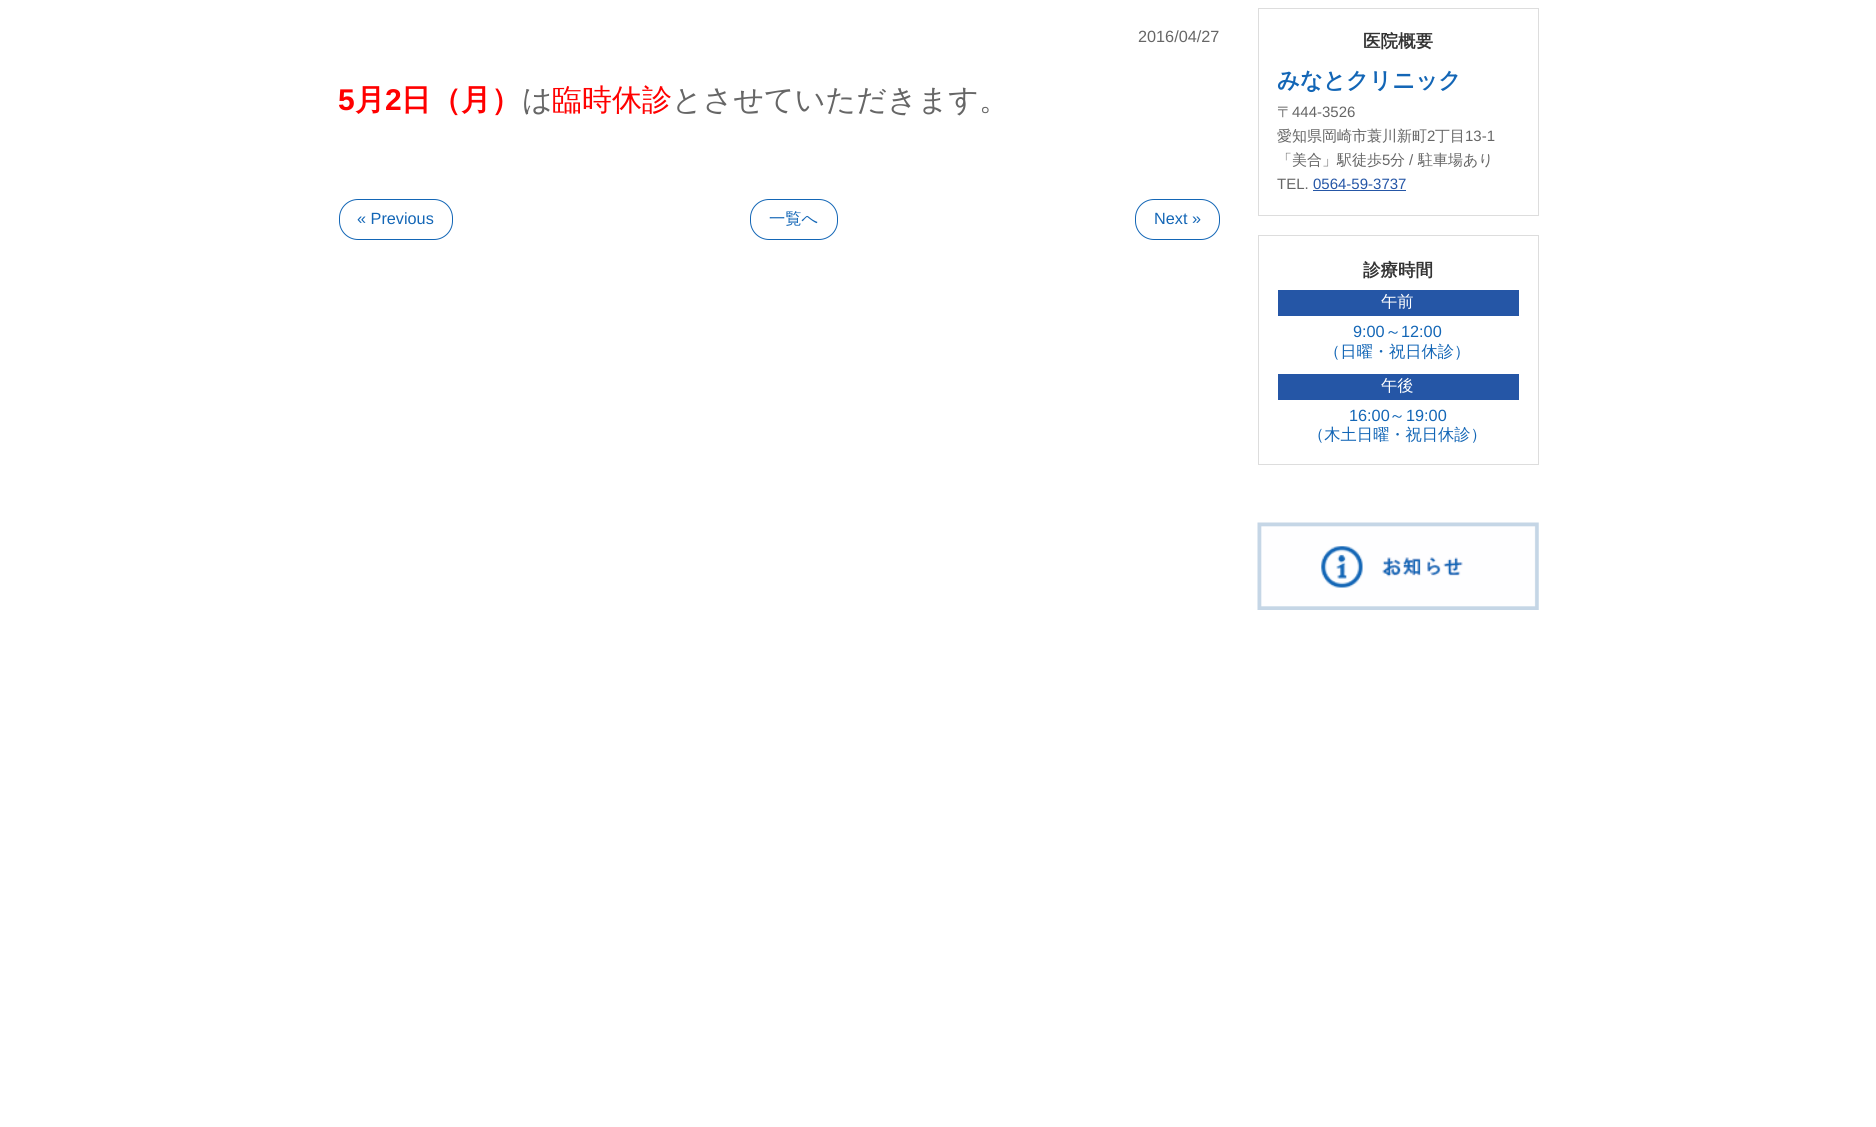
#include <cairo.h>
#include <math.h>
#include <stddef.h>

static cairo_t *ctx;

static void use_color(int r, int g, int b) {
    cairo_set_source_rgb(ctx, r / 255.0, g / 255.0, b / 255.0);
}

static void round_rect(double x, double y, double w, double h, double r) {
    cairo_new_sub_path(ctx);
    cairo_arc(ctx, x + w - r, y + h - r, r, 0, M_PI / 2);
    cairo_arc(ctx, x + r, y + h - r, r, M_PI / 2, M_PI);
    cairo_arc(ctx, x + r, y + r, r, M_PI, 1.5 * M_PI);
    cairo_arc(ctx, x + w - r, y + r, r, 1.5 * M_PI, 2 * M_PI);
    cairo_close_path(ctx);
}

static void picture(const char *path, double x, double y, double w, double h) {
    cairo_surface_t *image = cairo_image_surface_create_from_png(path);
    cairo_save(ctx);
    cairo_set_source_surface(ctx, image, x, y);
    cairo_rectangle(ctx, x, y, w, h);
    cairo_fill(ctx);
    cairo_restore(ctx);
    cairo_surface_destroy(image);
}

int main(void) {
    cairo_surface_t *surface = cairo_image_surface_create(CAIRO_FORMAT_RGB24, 1876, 1127);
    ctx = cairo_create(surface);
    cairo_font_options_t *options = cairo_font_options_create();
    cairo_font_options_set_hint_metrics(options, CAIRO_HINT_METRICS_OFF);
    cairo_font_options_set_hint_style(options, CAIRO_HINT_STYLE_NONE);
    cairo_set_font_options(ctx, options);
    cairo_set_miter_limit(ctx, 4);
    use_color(255, 255, 255);
    cairo_paint(ctx);
    cairo_select_font_face(ctx, "Liberation Sans", CAIRO_FONT_SLANT_NORMAL, CAIRO_FONT_WEIGHT_NORMAL);
    cairo_set_font_size(ctx, 16.25);
    use_color(102, 102, 102);
    cairo_move_to(ctx, 1138, 42);
    cairo_show_text(ctx, "2016/04/27");
    cairo_select_font_face(ctx, "Liberation Sans", CAIRO_FONT_SLANT_NORMAL, CAIRO_FONT_WEIGHT_BOLD);
    cairo_set_font_size(ctx, 30);
    use_color(255, 0, 0);
    cairo_move_to(ctx, 338, 110);
    cairo_show_text(ctx, "5");
    cairo_select_font_face(ctx, "WenQuanYi Zen Hei", CAIRO_FONT_SLANT_NORMAL, CAIRO_FONT_WEIGHT_BOLD);
    cairo_move_to(ctx, 355, 110);
    cairo_show_text(ctx, "月");
    cairo_select_font_face(ctx, "Liberation Sans", CAIRO_FONT_SLANT_NORMAL, CAIRO_FONT_WEIGHT_BOLD);
    cairo_move_to(ctx, 385, 110);
    cairo_show_text(ctx, "2");
    cairo_select_font_face(ctx, "WenQuanYi Zen Hei", CAIRO_FONT_SLANT_NORMAL, CAIRO_FONT_WEIGHT_BOLD);
    cairo_move_to(ctx, 401, 110);
    cairo_show_text(ctx, "日（月）");
    cairo_select_font_face(ctx, "WenQuanYi Zen Hei Medium", CAIRO_FONT_SLANT_NORMAL, CAIRO_FONT_WEIGHT_NORMAL);
    use_color(102, 102, 102);
    cairo_move_to(ctx, 522, 110);
    cairo_show_text(ctx, "は");
    use_color(255, 0, 0);
    cairo_move_to(ctx, 552, 110);
    cairo_show_text(ctx, "臨時休診");
    use_color(102, 102, 102);
    cairo_move_to(ctx, 672, 110);
    cairo_show_text(ctx, "とさせていただきます。");
    round_rect(339.5, 199.5, 113, 40, 18.5);
    use_color(19, 102, 182);
    cairo_set_line_width(ctx, 1);
    cairo_stroke(ctx);
    cairo_select_font_face(ctx, "Liberation Sans", CAIRO_FONT_SLANT_NORMAL, CAIRO_FONT_WEIGHT_NORMAL);
    cairo_set_font_size(ctx, 16.25);
    cairo_move_to(ctx, 357, 224);
    cairo_show_text(ctx, "« Previous");
    round_rect(750.5, 199.5, 87, 40, 18.5);
    cairo_stroke(ctx);
    cairo_select_font_face(ctx, "WenQuanYi Zen Hei Medium", CAIRO_FONT_SLANT_NORMAL, CAIRO_FONT_WEIGHT_NORMAL);
    cairo_move_to(ctx, 769, 224);
    cairo_show_text(ctx, "一覧へ");
    round_rect(1135.5, 199.5, 84, 40, 18.5);
    cairo_stroke(ctx);
    cairo_select_font_face(ctx, "Liberation Sans", CAIRO_FONT_SLANT_NORMAL, CAIRO_FONT_WEIGHT_NORMAL);
    cairo_move_to(ctx, 1154, 224);
    cairo_show_text(ctx, "Next »");
    cairo_rectangle(ctx, 1258.5, 8.5, 280, 207);
    use_color(221, 221, 221);
    cairo_stroke(ctx);
    cairo_select_font_face(ctx, "WenQuanYi Zen Hei", CAIRO_FONT_SLANT_NORMAL, CAIRO_FONT_WEIGHT_BOLD);
    cairo_set_font_size(ctx, 17.5);
    use_color(51, 51, 51);
    cairo_move_to(ctx, 1363, 47);
    cairo_show_text(ctx, "医院概要");
    cairo_set_font_size(ctx, 22.5);
    use_color(19, 102, 182);
    cairo_move_to(ctx, 1277, 88);
    cairo_show_text(ctx, "みなとクリニック");
    cairo_select_font_face(ctx, "WenQuanYi Zen Hei Medium", CAIRO_FONT_SLANT_NORMAL, CAIRO_FONT_WEIGHT_NORMAL);
    cairo_set_font_size(ctx, 15);
    use_color(102, 102, 102);
    cairo_move_to(ctx, 1277, 117);
    cairo_show_text(ctx, "〒");
    cairo_select_font_face(ctx, "Liberation Sans", CAIRO_FONT_SLANT_NORMAL, CAIRO_FONT_WEIGHT_NORMAL);
    cairo_move_to(ctx, 1292, 117);
    cairo_show_text(ctx, "444-3526");
    cairo_select_font_face(ctx, "WenQuanYi Zen Hei Medium", CAIRO_FONT_SLANT_NORMAL, CAIRO_FONT_WEIGHT_NORMAL);
    cairo_move_to(ctx, 1277, 141);
    cairo_show_text(ctx, "愛知県岡崎市蓑川新町");
    cairo_select_font_face(ctx, "Liberation Sans", CAIRO_FONT_SLANT_NORMAL, CAIRO_FONT_WEIGHT_NORMAL);
    cairo_move_to(ctx, 1427, 141);
    cairo_show_text(ctx, "2");
    cairo_select_font_face(ctx, "WenQuanYi Zen Hei Medium", CAIRO_FONT_SLANT_NORMAL, CAIRO_FONT_WEIGHT_NORMAL);
    cairo_move_to(ctx, 1435, 141);
    cairo_show_text(ctx, "丁目");
    cairo_select_font_face(ctx, "Liberation Sans", CAIRO_FONT_SLANT_NORMAL, CAIRO_FONT_WEIGHT_NORMAL);
    cairo_move_to(ctx, 1465, 141);
    cairo_show_text(ctx, "13-1");
    cairo_select_font_face(ctx, "WenQuanYi Zen Hei Medium", CAIRO_FONT_SLANT_NORMAL, CAIRO_FONT_WEIGHT_NORMAL);
    cairo_move_to(ctx, 1277, 165);
    cairo_show_text(ctx, "「美合」駅徒歩");
    cairo_select_font_face(ctx, "Liberation Sans", CAIRO_FONT_SLANT_NORMAL, CAIRO_FONT_WEIGHT_NORMAL);
    cairo_move_to(ctx, 1382, 165);
    cairo_show_text(ctx, "5");
    cairo_select_font_face(ctx, "WenQuanYi Zen Hei Medium", CAIRO_FONT_SLANT_NORMAL, CAIRO_FONT_WEIGHT_NORMAL);
    cairo_move_to(ctx, 1390, 165);
    cairo_show_text(ctx, "分");
    cairo_select_font_face(ctx, "Liberation Sans", CAIRO_FONT_SLANT_NORMAL, CAIRO_FONT_WEIGHT_NORMAL);
    cairo_move_to(ctx, 1409, 165);
    cairo_show_text(ctx, "/");
    cairo_select_font_face(ctx, "WenQuanYi Zen Hei Medium", CAIRO_FONT_SLANT_NORMAL, CAIRO_FONT_WEIGHT_NORMAL);
    cairo_move_to(ctx, 1418, 165);
    cairo_show_text(ctx, "駐車場あり");
    cairo_select_font_face(ctx, "Liberation Sans", CAIRO_FONT_SLANT_NORMAL, CAIRO_FONT_WEIGHT_NORMAL);
    cairo_move_to(ctx, 1277, 189);
    cairo_show_text(ctx, "TEL.");
    use_color(37, 86, 166);
    cairo_move_to(ctx, 1313, 189);
    cairo_show_text(ctx, "0564-59-3737");
    cairo_rectangle(ctx, 1313, 190, 93, 1);
    cairo_fill(ctx);
    cairo_rectangle(ctx, 1258.5, 235.5, 280, 229);
    use_color(221, 221, 221);
    cairo_stroke(ctx);
    cairo_select_font_face(ctx, "WenQuanYi Zen Hei", CAIRO_FONT_SLANT_NORMAL, CAIRO_FONT_WEIGHT_BOLD);
    cairo_set_font_size(ctx, 17.5);
    use_color(51, 51, 51);
    cairo_move_to(ctx, 1363, 276);
    cairo_show_text(ctx, "診療時間");
    use_color(37, 86, 166);
    cairo_rectangle(ctx, 1278, 290, 241, 26);
    cairo_fill(ctx);
    cairo_select_font_face(ctx, "WenQuanYi Zen Hei Medium", CAIRO_FONT_SLANT_NORMAL, CAIRO_FONT_WEIGHT_NORMAL);
    cairo_set_font_size(ctx, 16.25);
    use_color(255, 255, 255);
    cairo_move_to(ctx, 1381, 307);
    cairo_show_text(ctx, "午前");
    cairo_select_font_face(ctx, "Liberation Sans", CAIRO_FONT_SLANT_NORMAL, CAIRO_FONT_WEIGHT_NORMAL);
    use_color(19, 102, 182);
    cairo_move_to(ctx, 1353, 337);
    cairo_show_text(ctx, "9:00");
    cairo_select_font_face(ctx, "WenQuanYi Zen Hei Medium", CAIRO_FONT_SLANT_NORMAL, CAIRO_FONT_WEIGHT_NORMAL);
    cairo_move_to(ctx, 1385, 337);
    cairo_show_text(ctx, "～");
    cairo_select_font_face(ctx, "Liberation Sans", CAIRO_FONT_SLANT_NORMAL, CAIRO_FONT_WEIGHT_NORMAL);
    cairo_move_to(ctx, 1401, 337);
    cairo_show_text(ctx, "12:00");
    cairo_select_font_face(ctx, "WenQuanYi Zen Hei Medium", CAIRO_FONT_SLANT_NORMAL, CAIRO_FONT_WEIGHT_NORMAL);
    cairo_move_to(ctx, 1324, 357);
    cairo_show_text(ctx, "（日曜・祝日休診）");
    use_color(37, 86, 166);
    cairo_rectangle(ctx, 1278, 374, 241, 26);
    cairo_fill(ctx);
    use_color(255, 255, 255);
    cairo_move_to(ctx, 1381, 391);
    cairo_show_text(ctx, "午後");
    cairo_select_font_face(ctx, "Liberation Sans", CAIRO_FONT_SLANT_NORMAL, CAIRO_FONT_WEIGHT_NORMAL);
    use_color(19, 102, 182);
    cairo_move_to(ctx, 1349, 421);
    cairo_show_text(ctx, "16:00");
    cairo_select_font_face(ctx, "WenQuanYi Zen Hei Medium", CAIRO_FONT_SLANT_NORMAL, CAIRO_FONT_WEIGHT_NORMAL);
    cairo_move_to(ctx, 1389, 421);
    cairo_show_text(ctx, "～");
    cairo_select_font_face(ctx, "Liberation Sans", CAIRO_FONT_SLANT_NORMAL, CAIRO_FONT_WEIGHT_NORMAL);
    cairo_move_to(ctx, 1406, 421);
    cairo_show_text(ctx, "19:00");
    cairo_select_font_face(ctx, "WenQuanYi Zen Hei Medium", CAIRO_FONT_SLANT_NORMAL, CAIRO_FONT_WEIGHT_NORMAL);
    cairo_move_to(ctx, 1308, 440);
    cairo_show_text(ctx, "（木土日曜・祝日休診）");
    picture("img1.png", 1257, 522, 282, 88);
    cairo_surface_write_to_png(surface, "result.png");
    cairo_font_options_destroy(options);
    cairo_destroy(ctx);
    cairo_surface_destroy(surface);
    return 0;
}
